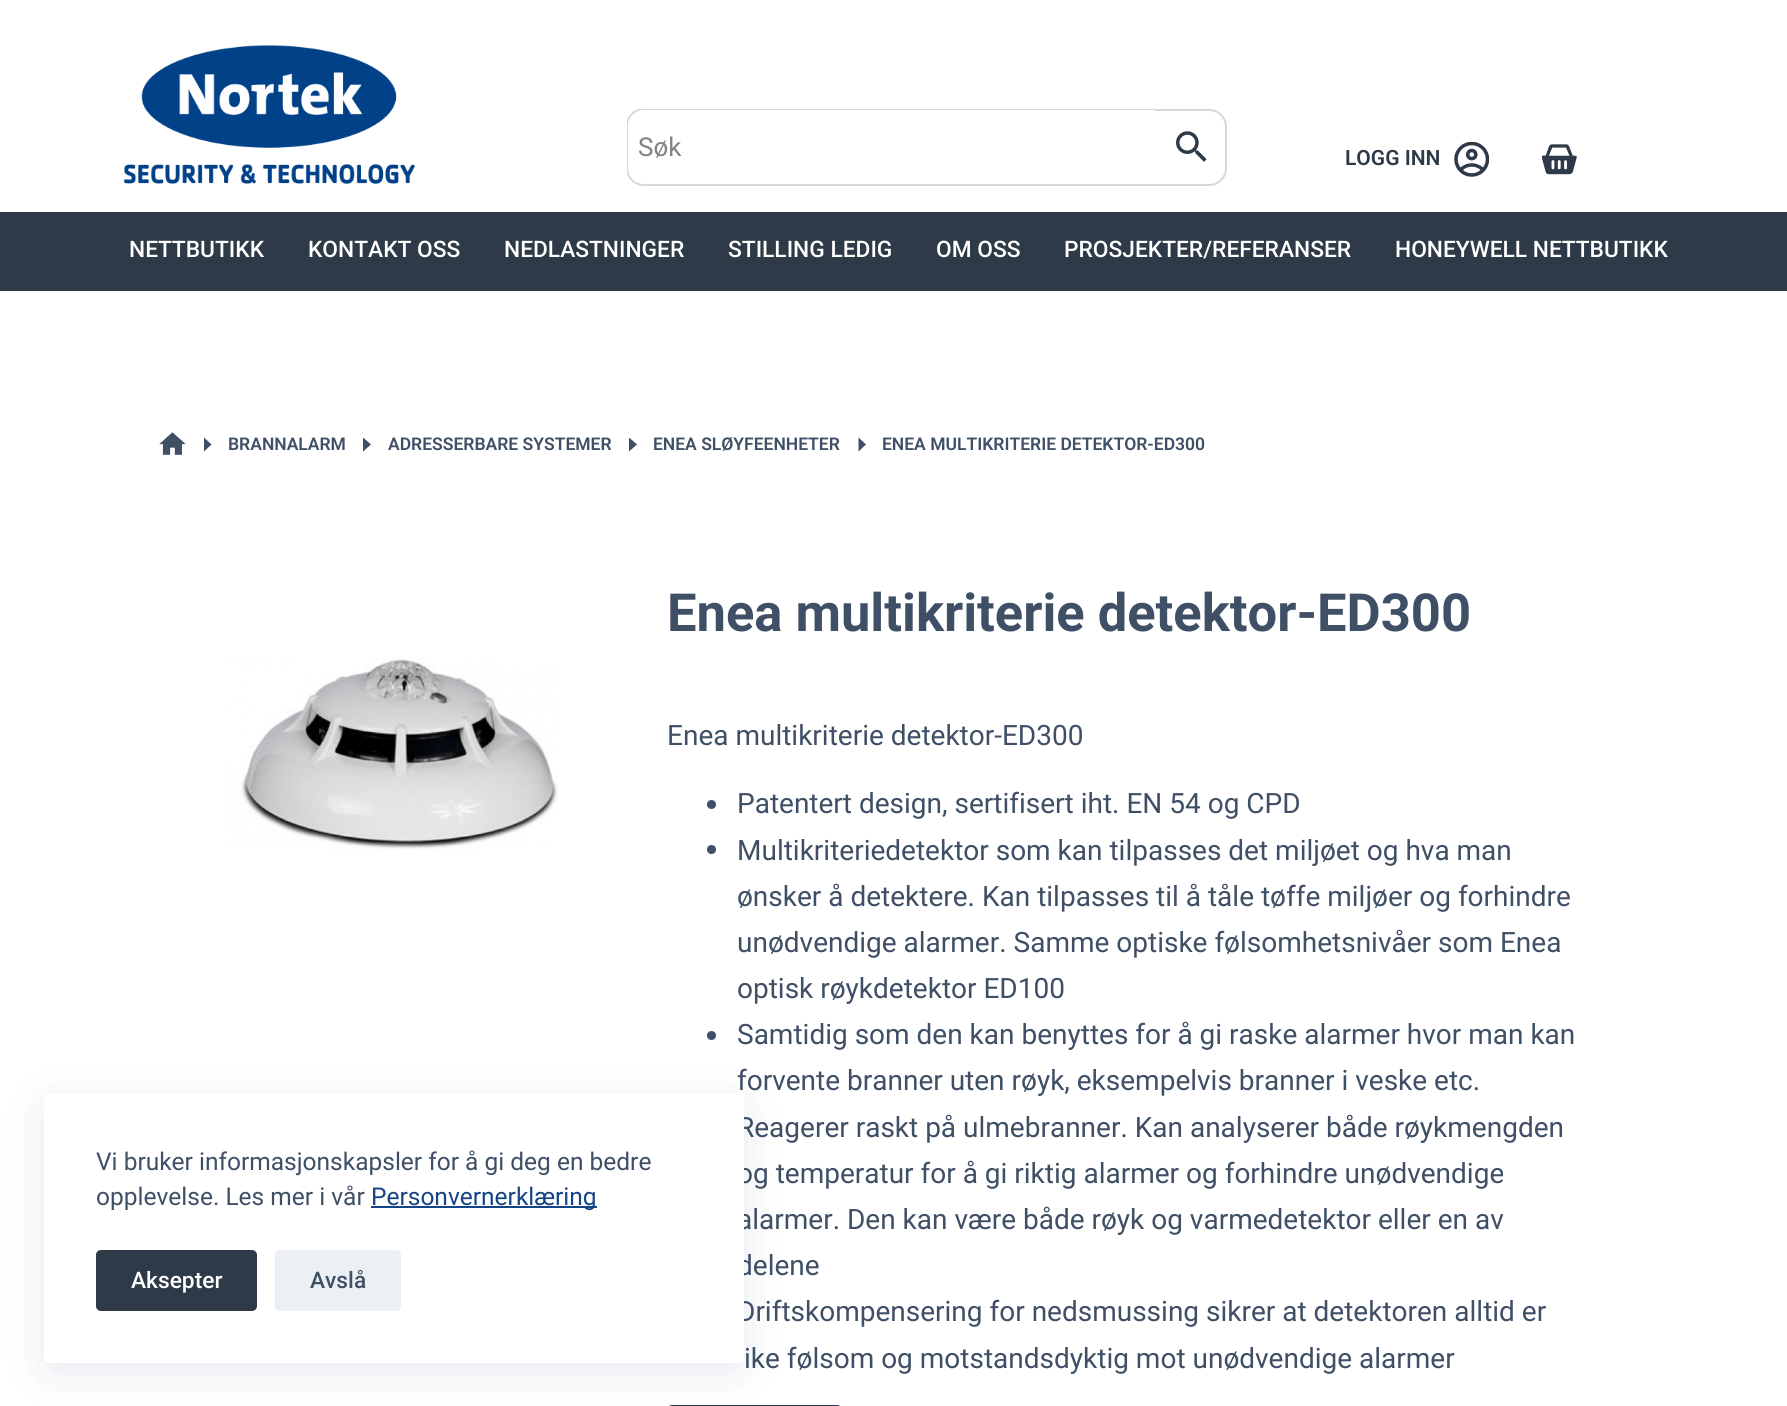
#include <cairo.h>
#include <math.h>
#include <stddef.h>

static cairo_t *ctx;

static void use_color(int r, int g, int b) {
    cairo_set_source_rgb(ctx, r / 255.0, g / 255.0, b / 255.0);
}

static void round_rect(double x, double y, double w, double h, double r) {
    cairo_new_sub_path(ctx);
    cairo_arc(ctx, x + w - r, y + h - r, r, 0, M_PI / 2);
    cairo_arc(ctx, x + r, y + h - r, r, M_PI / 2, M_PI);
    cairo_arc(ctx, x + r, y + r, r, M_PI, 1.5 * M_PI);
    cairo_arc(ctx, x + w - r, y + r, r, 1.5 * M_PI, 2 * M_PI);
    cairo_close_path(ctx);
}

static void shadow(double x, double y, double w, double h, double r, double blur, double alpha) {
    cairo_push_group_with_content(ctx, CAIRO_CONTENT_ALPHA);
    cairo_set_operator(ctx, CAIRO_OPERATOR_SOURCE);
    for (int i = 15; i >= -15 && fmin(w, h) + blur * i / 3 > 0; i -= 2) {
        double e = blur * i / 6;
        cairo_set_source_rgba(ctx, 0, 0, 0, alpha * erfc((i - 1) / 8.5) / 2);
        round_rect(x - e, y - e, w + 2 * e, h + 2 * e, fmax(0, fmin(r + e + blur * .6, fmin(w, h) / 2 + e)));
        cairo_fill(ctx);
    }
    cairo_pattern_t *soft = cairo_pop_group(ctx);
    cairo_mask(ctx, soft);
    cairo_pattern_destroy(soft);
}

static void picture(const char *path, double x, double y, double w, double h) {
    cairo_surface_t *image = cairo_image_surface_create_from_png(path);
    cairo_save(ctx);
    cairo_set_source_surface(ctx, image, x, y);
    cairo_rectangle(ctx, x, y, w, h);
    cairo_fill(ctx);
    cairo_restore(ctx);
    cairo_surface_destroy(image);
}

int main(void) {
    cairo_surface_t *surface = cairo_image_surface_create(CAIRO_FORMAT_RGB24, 1787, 1406);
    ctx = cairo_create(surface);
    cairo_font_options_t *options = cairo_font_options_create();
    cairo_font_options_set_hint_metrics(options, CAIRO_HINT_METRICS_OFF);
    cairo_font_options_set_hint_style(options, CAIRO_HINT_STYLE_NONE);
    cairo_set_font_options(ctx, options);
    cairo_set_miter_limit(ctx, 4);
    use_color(255, 255, 255);
    cairo_paint(ctx);
    picture("img1.png", 124, 45, 291, 139);
    cairo_new_path(ctx);
    cairo_move_to(ctx, 1154, 110);
    cairo_line_to(ctx, 1209, 110);
    cairo_curve_to(ctx, 1218.5, 110, 1226, 117.5, 1226, 127);
    cairo_line_to(ctx, 1226, 168);
    cairo_curve_to(ctx, 1226, 177.5, 1218.5, 185, 1209, 185);
    cairo_line_to(ctx, 1154, 185);
    cairo_close_path(ctx);
    use_color(216, 216, 216);
    cairo_stroke(ctx);
    use_color(255, 255, 255);
    cairo_new_path(ctx);
    cairo_move_to(ctx, 645, 109);
    cairo_line_to(ctx, 1155, 109);
    cairo_line_to(ctx, 1155, 186);
    cairo_line_to(ctx, 645, 186);
    cairo_curve_to(ctx, 635, 186, 627, 178, 627, 168);
    cairo_line_to(ctx, 627, 127);
    cairo_curve_to(ctx, 627, 117, 635, 109, 645, 109);
    cairo_close_path(ctx);
    cairo_fill(ctx);
    cairo_save(ctx);
    cairo_rectangle(ctx, 627, 109, 528, 77);
    cairo_clip(ctx);
    use_color(216, 216, 216);
    cairo_set_fill_rule(ctx, CAIRO_FILL_RULE_EVEN_ODD);
    cairo_new_path(ctx);
    cairo_move_to(ctx, 644, 108);
    cairo_line_to(ctx, 1155, 108);
    cairo_line_to(ctx, 1155, 186);
    cairo_line_to(ctx, 644, 186);
    cairo_curve_to(ctx, 634, 186, 626, 178, 626, 168);
    cairo_line_to(ctx, 626, 126);
    cairo_curve_to(ctx, 626, 116, 634, 108, 644, 108);
    cairo_close_path(ctx);
    cairo_move_to(ctx, 644, 110);
    cairo_line_to(ctx, 1155, 110);
    cairo_line_to(ctx, 1155, 184);
    cairo_line_to(ctx, 644, 184);
    cairo_curve_to(ctx, 635, 184, 628, 177, 628, 168);
    cairo_line_to(ctx, 628, 126);
    cairo_curve_to(ctx, 628, 117, 635, 110, 644, 110);
    cairo_close_path(ctx);
    cairo_fill(ctx);
    cairo_restore(ctx);
    cairo_select_font_face(ctx, "Roboto", CAIRO_FONT_SLANT_NORMAL, CAIRO_FONT_WEIGHT_NORMAL);
    cairo_set_font_size(ctx, 26);
    use_color(131, 131, 131);
    cairo_move_to(ctx, 638, 156);
    cairo_show_text(ctx, "Søk");
    picture("img2.png", 1176, 131, 31, 31);
    cairo_select_font_face(ctx, "Roboto SemiBold", CAIRO_FONT_SLANT_NORMAL, CAIRO_FONT_WEIGHT_NORMAL);
    cairo_set_font_size(ctx, 21);
    use_color(46, 58, 71);
    cairo_move_to(ctx, 1345, 165);
    cairo_show_text(ctx, "LOGG INN");
    picture("img3.png", 1454, 142, 35, 35);
    picture("img4.png", 1542, 144, 35, 31);
    cairo_rectangle(ctx, 0, 212, 1787, 79);
    cairo_fill(ctx);
    cairo_select_font_face(ctx, "Roboto Medium", CAIRO_FONT_SLANT_NORMAL, CAIRO_FONT_WEIGHT_NORMAL);
    cairo_set_font_size(ctx, 22.75);
    use_color(255, 255, 255);
    cairo_move_to(ctx, 129, 257);
    cairo_show_text(ctx, "NETTBUTIKK");
    cairo_move_to(ctx, 308, 257);
    cairo_show_text(ctx, "KONTAKT OSS");
    cairo_move_to(ctx, 504, 257);
    cairo_show_text(ctx, "NEDLASTNINGER");
    cairo_move_to(ctx, 728, 257);
    cairo_show_text(ctx, "STILLING LEDIG");
    cairo_move_to(ctx, 936, 257);
    cairo_show_text(ctx, "OM OSS");
    cairo_move_to(ctx, 1064, 257);
    cairo_show_text(ctx, "PROSJEKTER/REFERANSER");
    cairo_move_to(ctx, 1395, 257);
    cairo_show_text(ctx, "HONEYWELL NETTBUTIKK");
    picture("img5.png", 159, 432, 27, 23);
    use_color(63, 79, 102);
    cairo_new_path(ctx);
    cairo_move_to(ctx, 204, 437.5);
    cairo_line_to(ctx, 211.5, 444.5);
    cairo_line_to(ctx, 204, 451.5);
    cairo_close_path(ctx);
    cairo_fill(ctx);
    cairo_select_font_face(ctx, "Roboto SemiBold", CAIRO_FONT_SLANT_NORMAL, CAIRO_FONT_WEIGHT_NORMAL);
    cairo_set_font_size(ctx, 17.5);
    cairo_move_to(ctx, 228, 450);
    cairo_show_text(ctx, "BRANNALARM");
    cairo_new_path(ctx);
    cairo_move_to(ctx, 363, 437.5);
    cairo_line_to(ctx, 371, 444.5);
    cairo_line_to(ctx, 363, 451.5);
    cairo_close_path(ctx);
    cairo_fill(ctx);
    cairo_move_to(ctx, 388, 450);
    cairo_show_text(ctx, "ADRESSERBARE SYSTEMER");
    cairo_new_path(ctx);
    cairo_move_to(ctx, 629, 437.5);
    cairo_line_to(ctx, 637, 444.5);
    cairo_line_to(ctx, 629, 451.5);
    cairo_close_path(ctx);
    cairo_fill(ctx);
    cairo_move_to(ctx, 653, 450);
    cairo_show_text(ctx, "ENEA SLØYFEENHETER");
    cairo_new_path(ctx);
    cairo_move_to(ctx, 858.5, 437.5);
    cairo_line_to(ctx, 866, 444.5);
    cairo_line_to(ctx, 858.5, 451.5);
    cairo_close_path(ctx);
    cairo_fill(ctx);
    cairo_move_to(ctx, 882, 450);
    cairo_show_text(ctx, "ENEA MULTIKRITERIE DETEKTOR-ED300");
    picture("img6.png", 226, 656, 332, 194);
    cairo_select_font_face(ctx, "Roboto", CAIRO_FONT_SLANT_NORMAL, CAIRO_FONT_WEIGHT_BOLD);
    cairo_set_font_size(ctx, 52.5);
    cairo_move_to(ctx, 667, 631);
    cairo_show_text(ctx, "Enea multikriterie detektor-ED300");
    cairo_select_font_face(ctx, "Roboto", CAIRO_FONT_SLANT_NORMAL, CAIRO_FONT_WEIGHT_NORMAL);
    cairo_set_font_size(ctx, 28);
    cairo_move_to(ctx, 667, 745);
    cairo_show_text(ctx, "Enea multikriterie detektor-ED300");
    cairo_new_path(ctx);
    cairo_arc(ctx, 711.5, 804.5, 4.5, 0, 2 * M_PI);
    cairo_fill(ctx);
    cairo_move_to(ctx, 737, 813);
    cairo_show_text(ctx, "Patentert design, sertifisert iht. EN 54 og CPD");
    cairo_new_path(ctx);
    cairo_arc(ctx, 711.5, 849.5, 4.5, 0, 2 * M_PI);
    cairo_fill(ctx);
    cairo_move_to(ctx, 737, 860);
    cairo_show_text(ctx, "Multikriteriedetektor som kan tilpasses det miljøet og hva man");
    cairo_move_to(ctx, 737, 906);
    cairo_show_text(ctx, "ønsker å detektere. Kan tilpasses til å tåle tøffe miljøer og forhindre");
    cairo_move_to(ctx, 737, 952);
    cairo_show_text(ctx, "unødvendige alarmer. Samme optiske følsomhetsnivåer som Enea");
    cairo_move_to(ctx, 737, 998);
    cairo_show_text(ctx, "optisk røykdetektor ED100");
    cairo_new_path(ctx);
    cairo_arc(ctx, 711.5, 1035.5, 4.5, 0, 2 * M_PI);
    cairo_fill(ctx);
    cairo_move_to(ctx, 737, 1044);
    cairo_show_text(ctx, "Samtidig som den kan benyttes for å gi raske alarmer hvor man kan");
    cairo_move_to(ctx, 737, 1090);
    cairo_show_text(ctx, "forvente branner uten røyk, eksempelvis branner i veske etc.");
    cairo_move_to(ctx, 737, 1137);
    cairo_show_text(ctx, "Reagerer raskt på ulmebranner. Kan analyserer både røykmengden");
    cairo_move_to(ctx, 737, 1183);
    cairo_show_text(ctx, "og temperatur for å gi riktig alarmer og forhindre unødvendige");
    cairo_move_to(ctx, 737, 1229);
    cairo_show_text(ctx, "alarmer. Den kan være både røyk og varmedetektor eller en av");
    cairo_move_to(ctx, 737, 1275);
    cairo_show_text(ctx, "delene");
    cairo_move_to(ctx, 737, 1321);
    cairo_show_text(ctx, "Driftskompensering for nedsmussing sikrer at detektoren alltid er");
    cairo_move_to(ctx, 744, 1368);
    cairo_show_text(ctx, "ike følsom og motstandsdyktig mot unødvendige alarmer");
    use_color(46, 58, 71);
    round_rect(667, 1405, 175, 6, 5);
    cairo_fill(ctx);
    use_color(34, 56, 101);
    shadow(53, 1111, 682, 252, 0, 26, 0.15);
    use_color(255, 255, 255);
    round_rect(44, 1094, 700, 269, 5);
    cairo_fill(ctx);
    cairo_set_font_size(ctx, 24.5);
    use_color(63, 79, 102);
    cairo_move_to(ctx, 96, 1170);
    cairo_show_text(ctx, "Vi bruker informasjonskapsler for å gi deg en bedre");
    cairo_move_to(ctx, 96, 1205);
    cairo_show_text(ctx, "opplevelse. Les mer i vår");
    use_color(20, 68, 133);
    cairo_rectangle(ctx, 371, 1206, 226, 2);
    cairo_fill(ctx);
    cairo_move_to(ctx, 371, 1205);
    cairo_show_text(ctx, "Personvernerklæring");
    use_color(46, 58, 71);
    round_rect(96, 1250, 161, 61, 5);
    cairo_fill(ctx);
    cairo_select_font_face(ctx, "Roboto Medium", CAIRO_FONT_SLANT_NORMAL, CAIRO_FONT_WEIGHT_NORMAL);
    cairo_set_font_size(ctx, 22.75);
    use_color(255, 255, 255);
    cairo_move_to(ctx, 131, 1288);
    cairo_show_text(ctx, "Aksepter");
    use_color(236, 239, 243);
    round_rect(275, 1250, 126, 61, 5);
    cairo_fill(ctx);
    use_color(63, 79, 102);
    cairo_move_to(ctx, 310, 1288);
    cairo_show_text(ctx, "Avslå");
    cairo_surface_write_to_png(surface, "result.png");
    cairo_font_options_destroy(options);
    cairo_destroy(ctx);
    cairo_surface_destroy(surface);
    return 0;
}
